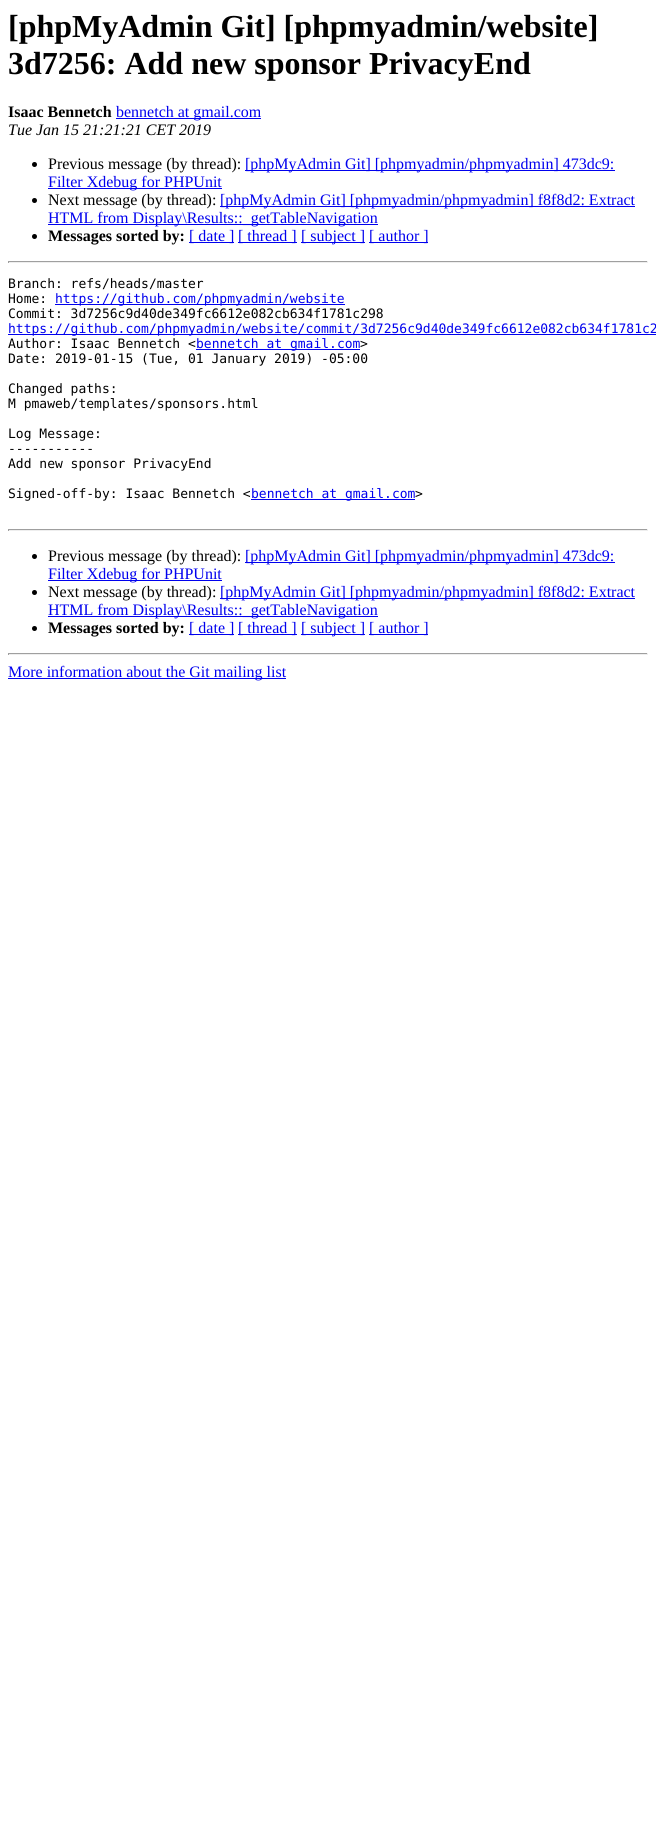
#include <cairo.h>
#include <math.h>
#include <stddef.h>

static cairo_t *ctx;

static void use_color(int r, int g, int b) {
    cairo_set_source_rgb(ctx, r / 255.0, g / 255.0, b / 255.0);
}

int main(void) {
    cairo_surface_t *surface = cairo_image_surface_create(CAIRO_FORMAT_RGB24, 656, 1829);
    ctx = cairo_create(surface);
    cairo_font_options_t *options = cairo_font_options_create();
    cairo_font_options_set_hint_metrics(options, CAIRO_HINT_METRICS_OFF);
    cairo_font_options_set_hint_style(options, CAIRO_HINT_STYLE_NONE);
    cairo_set_font_options(ctx, options);
    cairo_set_miter_limit(ctx, 4);
    use_color(255, 255, 255);
    cairo_paint(ctx);
    cairo_select_font_face(ctx, "Liberation Serif", CAIRO_FONT_SLANT_NORMAL, CAIRO_FONT_WEIGHT_BOLD);
    cairo_set_font_size(ctx, 32);
    use_color(0, 0, 0);
    cairo_move_to(ctx, 8, 37);
    cairo_show_text(ctx, "[phpMyAdmin Git] [phpmyadmin/website]");
    cairo_move_to(ctx, 8, 74);
    cairo_show_text(ctx, "3d7256: Add new sponsor PrivacyEnd");
    cairo_set_font_size(ctx, 16);
    cairo_move_to(ctx, 8, 117);
    cairo_show_text(ctx, "Isaac Bennetch");
    use_color(0, 0, 238);
    cairo_rectangle(ctx, 116, 118, 145, 1);
    cairo_fill(ctx);
    cairo_select_font_face(ctx, "Liberation Serif", CAIRO_FONT_SLANT_NORMAL, CAIRO_FONT_WEIGHT_NORMAL);
    cairo_move_to(ctx, 116, 117);
    cairo_show_text(ctx, "bennetch at gmail.com");
    cairo_select_font_face(ctx, "Liberation Serif", CAIRO_FONT_SLANT_ITALIC, CAIRO_FONT_WEIGHT_NORMAL);
    use_color(0, 0, 0);
    cairo_move_to(ctx, 8, 135);
    cairo_show_text(ctx, "Tue Jan 15 21:21:21 CET 2019");
    cairo_new_path(ctx);
    cairo_arc(ctx, 34.5, 164.5, 2.5, 0, 2 * M_PI);
    cairo_fill(ctx);
    cairo_select_font_face(ctx, "Liberation Serif", CAIRO_FONT_SLANT_NORMAL, CAIRO_FONT_WEIGHT_NORMAL);
    cairo_move_to(ctx, 48, 169);
    cairo_show_text(ctx, "Previous message (by thread):");
    use_color(0, 0, 238);
    cairo_rectangle(ctx, 245, 170, 370, 1);
    cairo_fill(ctx);
    cairo_move_to(ctx, 245, 169);
    cairo_show_text(ctx, "[phpMyAdmin Git] [phpmyadmin/phpmyadmin] 473dc9:");
    cairo_rectangle(ctx, 48, 188, 174, 1);
    cairo_fill(ctx);
    cairo_move_to(ctx, 48, 187);
    cairo_show_text(ctx, "Filter Xdebug for PHPUnit");
    use_color(0, 0, 0);
    cairo_new_path(ctx);
    cairo_arc(ctx, 34.5, 200.5, 2.5, 0, 2 * M_PI);
    cairo_fill(ctx);
    cairo_move_to(ctx, 48, 205);
    cairo_show_text(ctx, "Next message (by thread):");
    use_color(0, 0, 238);
    cairo_rectangle(ctx, 220, 206, 415, 1);
    cairo_fill(ctx);
    cairo_move_to(ctx, 220, 205);
    cairo_show_text(ctx, "[phpMyAdmin Git] [phpmyadmin/phpmyadmin] f8f8d2: Extract");
    cairo_rectangle(ctx, 48, 224, 330, 1);
    cairo_fill(ctx);
    cairo_move_to(ctx, 48, 223);
    cairo_show_text(ctx, "HTML from Display\\Results::_getTableNavigation");
    use_color(0, 0, 0);
    cairo_new_path(ctx);
    cairo_arc(ctx, 34.5, 236.5, 2.5, 0, 2 * M_PI);
    cairo_fill(ctx);
    cairo_select_font_face(ctx, "Liberation Serif", CAIRO_FONT_SLANT_NORMAL, CAIRO_FONT_WEIGHT_BOLD);
    cairo_move_to(ctx, 48, 241);
    cairo_show_text(ctx, "Messages sorted by:");
    use_color(0, 0, 238);
    cairo_rectangle(ctx, 189, 242, 45, 1);
    cairo_fill(ctx);
    cairo_select_font_face(ctx, "Liberation Serif", CAIRO_FONT_SLANT_NORMAL, CAIRO_FONT_WEIGHT_NORMAL);
    cairo_move_to(ctx, 189, 241);
    cairo_show_text(ctx, "[ date ]");
    cairo_rectangle(ctx, 238, 242, 59, 1);
    cairo_fill(ctx);
    cairo_move_to(ctx, 238, 241);
    cairo_show_text(ctx, "[ thread ]");
    cairo_rectangle(ctx, 301, 242, 64, 1);
    cairo_fill(ctx);
    cairo_move_to(ctx, 301, 241);
    cairo_show_text(ctx, "[ subject ]");
    cairo_rectangle(ctx, 369, 242, 59, 1);
    cairo_fill(ctx);
    cairo_move_to(ctx, 369, 241);
    cairo_show_text(ctx, "[ author ]");
    use_color(159, 159, 159);
    cairo_rectangle(ctx, 8, 261, 640, 1);
    cairo_fill(ctx);
    use_color(238, 238, 238);
    cairo_rectangle(ctx, 647, 261, 1, 2);
    cairo_fill(ctx);
    cairo_rectangle(ctx, 8, 262, 640, 1);
    cairo_fill(ctx);
    use_color(159, 159, 159);
    cairo_rectangle(ctx, 8, 261, 1, 2);
    cairo_fill(ctx);
    cairo_select_font_face(ctx, "DejaVu Sans Mono", CAIRO_FONT_SLANT_NORMAL, CAIRO_FONT_WEIGHT_NORMAL);
    cairo_set_font_size(ctx, 13);
    use_color(0, 0, 0);
    cairo_move_to(ctx, 8, 288);
    cairo_show_text(ctx, "Branch: refs/heads/master");
    cairo_move_to(ctx, 8, 303);
    cairo_show_text(ctx, "Home:");
    use_color(0, 0, 238);
    cairo_rectangle(ctx, 55, 304, 290, 1);
    cairo_fill(ctx);
    cairo_move_to(ctx, 55, 303);
    cairo_show_text(ctx, "https://github.com/phpmyadmin/website");
    use_color(0, 0, 0);
    cairo_move_to(ctx, 8, 318);
    cairo_show_text(ctx, "Commit: 3d7256c9d40de349fc6612e082cb634f1781c298");
    use_color(0, 0, 238);
    cairo_rectangle(ctx, 8, 334, 648, 1);
    cairo_fill(ctx);
    cairo_move_to(ctx, 8, 333);
    cairo_show_text(ctx, "https://github.com/phpmyadmin/website/commit/3d7256c9d40de349fc6612e082cb634f1781c2");
    use_color(0, 0, 0);
    cairo_move_to(ctx, 8, 348);
    cairo_show_text(ctx, "Author: Isaac Bennetch <");
    use_color(0, 0, 238);
    cairo_rectangle(ctx, 196, 349, 164, 1);
    cairo_fill(ctx);
    cairo_move_to(ctx, 196, 348);
    cairo_show_text(ctx, "bennetch at gmail.com");
    use_color(0, 0, 0);
    cairo_move_to(ctx, 360, 348);
    cairo_show_text(ctx, ">");
    cairo_move_to(ctx, 8, 363);
    cairo_show_text(ctx, "Date: 2019-01-15 (Tue, 01 January 2019) -05:00");
    cairo_move_to(ctx, 8, 393);
    cairo_show_text(ctx, "Changed paths:");
    cairo_move_to(ctx, 8, 408);
    cairo_show_text(ctx, "M pmaweb/templates/sponsors.html");
    cairo_move_to(ctx, 8, 438);
    cairo_show_text(ctx, "Log Message:");
    cairo_move_to(ctx, 8, 453);
    cairo_show_text(ctx, "-----------");
    cairo_move_to(ctx, 8, 468);
    cairo_show_text(ctx, "Add new sponsor PrivacyEnd");
    cairo_move_to(ctx, 8, 498);
    cairo_show_text(ctx, "Signed-off-by: Isaac Bennetch <");
    use_color(0, 0, 238);
    cairo_rectangle(ctx, 251, 499, 164, 1);
    cairo_fill(ctx);
    cairo_move_to(ctx, 251, 498);
    cairo_show_text(ctx, "bennetch at gmail.com");
    use_color(0, 0, 0);
    cairo_move_to(ctx, 415, 498);
    cairo_show_text(ctx, ">");
    use_color(159, 159, 159);
    cairo_rectangle(ctx, 8, 529, 640, 1);
    cairo_fill(ctx);
    use_color(238, 238, 238);
    cairo_rectangle(ctx, 647, 529, 1, 2);
    cairo_fill(ctx);
    cairo_rectangle(ctx, 8, 530, 640, 1);
    cairo_fill(ctx);
    use_color(159, 159, 159);
    cairo_rectangle(ctx, 8, 529, 1, 2);
    cairo_fill(ctx);
    use_color(0, 0, 0);
    cairo_arc(ctx, 34.5, 556.5, 2.5, 0, 2 * M_PI);
    cairo_fill(ctx);
    cairo_select_font_face(ctx, "Liberation Serif", CAIRO_FONT_SLANT_NORMAL, CAIRO_FONT_WEIGHT_NORMAL);
    cairo_set_font_size(ctx, 16);
    cairo_move_to(ctx, 48, 561);
    cairo_show_text(ctx, "Previous message (by thread):");
    use_color(0, 0, 238);
    cairo_rectangle(ctx, 245, 562, 370, 1);
    cairo_fill(ctx);
    cairo_move_to(ctx, 245, 561);
    cairo_show_text(ctx, "[phpMyAdmin Git] [phpmyadmin/phpmyadmin] 473dc9:");
    cairo_rectangle(ctx, 48, 580, 174, 1);
    cairo_fill(ctx);
    cairo_move_to(ctx, 48, 579);
    cairo_show_text(ctx, "Filter Xdebug for PHPUnit");
    use_color(0, 0, 0);
    cairo_new_path(ctx);
    cairo_arc(ctx, 34.5, 592.5, 2.5, 0, 2 * M_PI);
    cairo_fill(ctx);
    cairo_move_to(ctx, 48, 597);
    cairo_show_text(ctx, "Next message (by thread):");
    use_color(0, 0, 238);
    cairo_rectangle(ctx, 220, 598, 415, 1);
    cairo_fill(ctx);
    cairo_move_to(ctx, 220, 597);
    cairo_show_text(ctx, "[phpMyAdmin Git] [phpmyadmin/phpmyadmin] f8f8d2: Extract");
    cairo_rectangle(ctx, 48, 616, 330, 1);
    cairo_fill(ctx);
    cairo_move_to(ctx, 48, 615);
    cairo_show_text(ctx, "HTML from Display\\Results::_getTableNavigation");
    use_color(0, 0, 0);
    cairo_new_path(ctx);
    cairo_arc(ctx, 34.5, 628.5, 2.5, 0, 2 * M_PI);
    cairo_fill(ctx);
    cairo_select_font_face(ctx, "Liberation Serif", CAIRO_FONT_SLANT_NORMAL, CAIRO_FONT_WEIGHT_BOLD);
    cairo_move_to(ctx, 48, 633);
    cairo_show_text(ctx, "Messages sorted by:");
    use_color(0, 0, 238);
    cairo_rectangle(ctx, 189, 634, 45, 1);
    cairo_fill(ctx);
    cairo_select_font_face(ctx, "Liberation Serif", CAIRO_FONT_SLANT_NORMAL, CAIRO_FONT_WEIGHT_NORMAL);
    cairo_move_to(ctx, 189, 633);
    cairo_show_text(ctx, "[ date ]");
    cairo_rectangle(ctx, 238, 634, 59, 1);
    cairo_fill(ctx);
    cairo_move_to(ctx, 238, 633);
    cairo_show_text(ctx, "[ thread ]");
    cairo_rectangle(ctx, 301, 634, 64, 1);
    cairo_fill(ctx);
    cairo_move_to(ctx, 301, 633);
    cairo_show_text(ctx, "[ subject ]");
    cairo_rectangle(ctx, 369, 634, 59, 1);
    cairo_fill(ctx);
    cairo_move_to(ctx, 369, 633);
    cairo_show_text(ctx, "[ author ]");
    use_color(159, 159, 159);
    cairo_rectangle(ctx, 8, 653, 640, 1);
    cairo_fill(ctx);
    use_color(238, 238, 238);
    cairo_rectangle(ctx, 647, 653, 1, 2);
    cairo_fill(ctx);
    cairo_rectangle(ctx, 8, 654, 640, 1);
    cairo_fill(ctx);
    use_color(159, 159, 159);
    cairo_rectangle(ctx, 8, 653, 1, 2);
    cairo_fill(ctx);
    use_color(0, 0, 238);
    cairo_rectangle(ctx, 8, 678, 278, 1);
    cairo_fill(ctx);
    cairo_move_to(ctx, 8, 677);
    cairo_show_text(ctx, "More information about the Git mailing list");
    cairo_surface_write_to_png(surface, "result.png");
    cairo_font_options_destroy(options);
    cairo_destroy(ctx);
    cairo_surface_destroy(surface);
    return 0;
}
